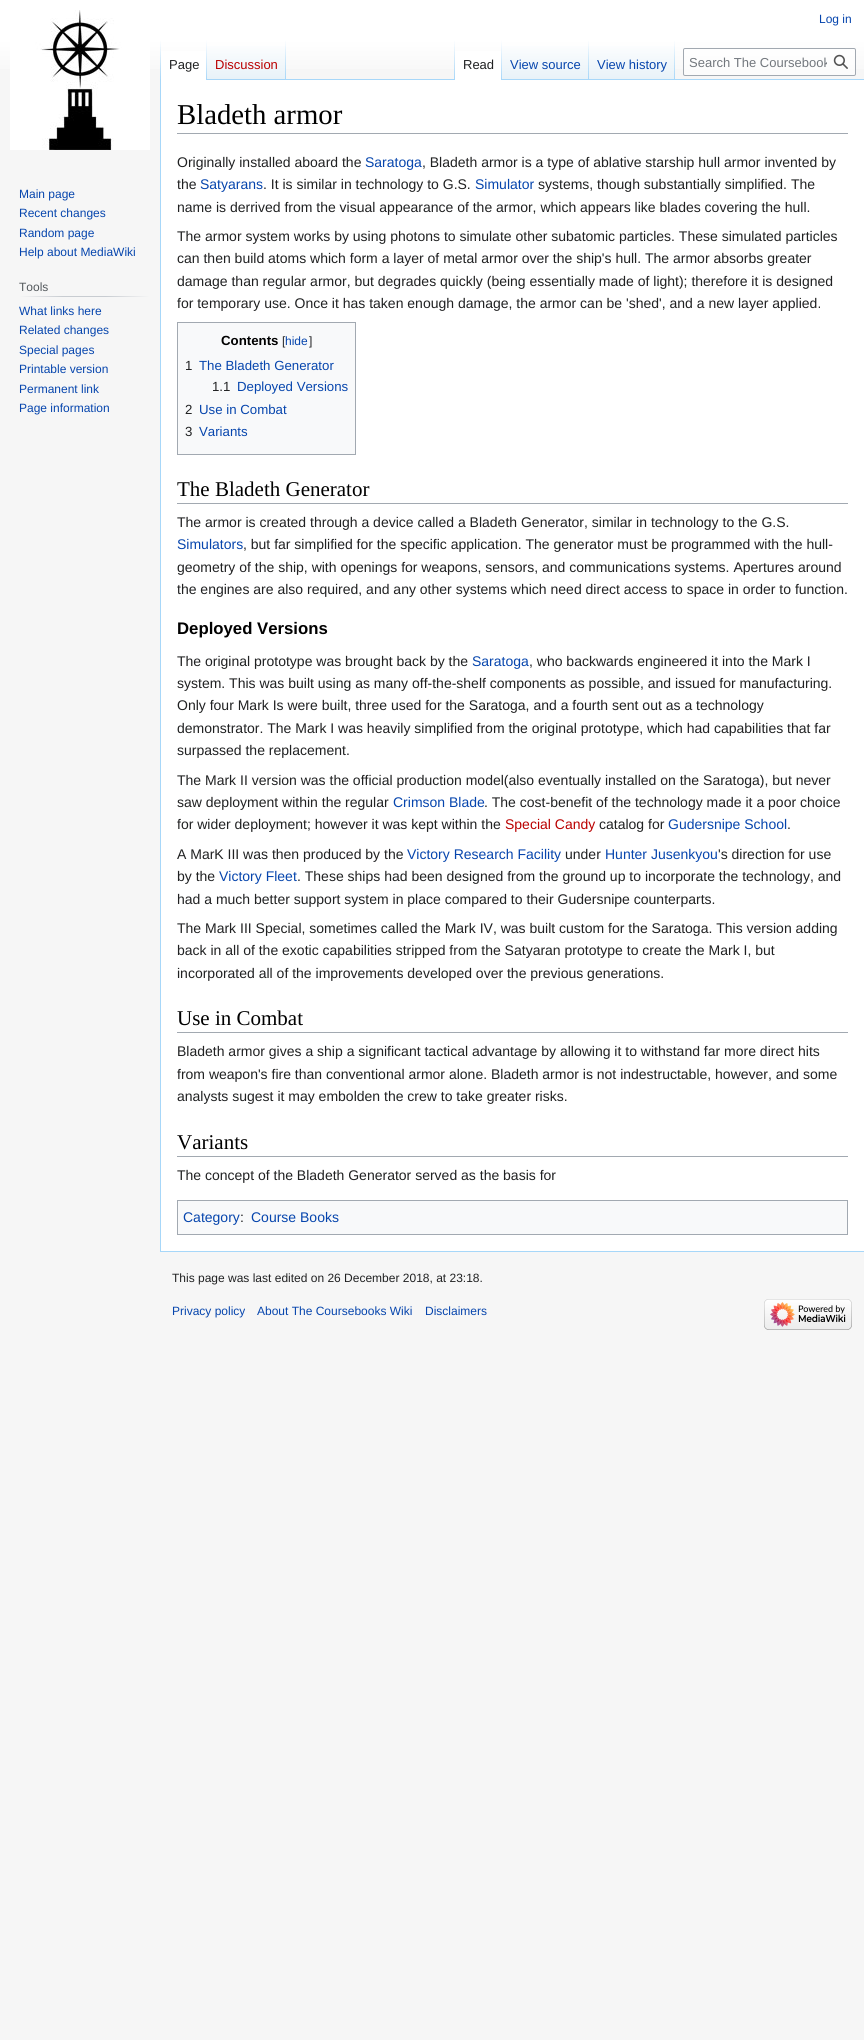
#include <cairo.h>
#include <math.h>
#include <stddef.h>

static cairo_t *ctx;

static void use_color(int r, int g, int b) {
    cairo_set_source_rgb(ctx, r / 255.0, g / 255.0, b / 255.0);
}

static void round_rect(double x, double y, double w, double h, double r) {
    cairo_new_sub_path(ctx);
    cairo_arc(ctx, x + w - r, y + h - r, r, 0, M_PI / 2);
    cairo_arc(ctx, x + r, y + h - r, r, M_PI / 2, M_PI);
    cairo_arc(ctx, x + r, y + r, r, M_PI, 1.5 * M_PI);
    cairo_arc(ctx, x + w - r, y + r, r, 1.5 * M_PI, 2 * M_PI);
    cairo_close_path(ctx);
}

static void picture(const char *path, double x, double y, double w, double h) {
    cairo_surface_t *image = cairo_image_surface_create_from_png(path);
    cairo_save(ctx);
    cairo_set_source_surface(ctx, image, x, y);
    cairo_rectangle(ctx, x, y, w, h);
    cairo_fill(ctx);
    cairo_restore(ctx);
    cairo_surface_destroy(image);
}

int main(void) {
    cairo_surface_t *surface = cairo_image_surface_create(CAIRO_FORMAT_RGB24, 864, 2040);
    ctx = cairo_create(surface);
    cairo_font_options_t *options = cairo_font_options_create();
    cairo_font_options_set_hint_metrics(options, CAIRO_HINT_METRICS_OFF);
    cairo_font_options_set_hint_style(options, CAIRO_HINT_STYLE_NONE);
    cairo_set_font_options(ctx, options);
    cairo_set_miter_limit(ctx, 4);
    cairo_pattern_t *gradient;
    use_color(246, 246, 246);
    cairo_paint(ctx);
    gradient = cairo_pattern_create_linear(432, 0, 432, 80);
    cairo_pattern_add_color_stop_rgba(gradient, 0.5, 1, 1, 1, 1);
    cairo_pattern_add_color_stop_rgba(gradient, 1, 0.965, 0.965, 0.965, 1);
    cairo_set_source(ctx, gradient);
    cairo_pattern_destroy(gradient);
    cairo_rectangle(ctx, 0, 0, 864, 69);
    cairo_fill(ctx);
    cairo_select_font_face(ctx, "Liberation Sans", CAIRO_FONT_SLANT_NORMAL, CAIRO_FONT_WEIGHT_NORMAL);
    cairo_set_font_size(ctx, 12);
    use_color(6, 69, 173);
    cairo_move_to(ctx, 819, 23);
    cairo_show_text(ctx, "Log in");
    use_color(167, 215, 249);
    cairo_rectangle(ctx, 160, 1251, 704, 1);
    cairo_fill(ctx);
    cairo_rectangle(ctx, 160, 79, 1, 1173);
    cairo_fill(ctx);
    gradient = cairo_pattern_create_linear(161, 40, 161, 80);
    cairo_pattern_add_color_stop_rgba(gradient, 0, 0.655, 0.843, 0.976, 0);
    cairo_pattern_add_color_stop_rgba(gradient, 1, 0.655, 0.843, 0.976, 1);
    cairo_set_source(ctx, gradient);
    cairo_pattern_destroy(gradient);
    cairo_rectangle(ctx, 160, 40, 1, 40);
    cairo_fill(ctx);
    use_color(255, 255, 255);
    cairo_rectangle(ctx, 161, 51, 45, 29);
    cairo_fill(ctx);
    gradient = cairo_pattern_create_linear(207, 40, 207, 80);
    cairo_pattern_add_color_stop_rgba(gradient, 0, 1, 1, 1, 1);
    cairo_pattern_add_color_stop_rgba(gradient, 1, 0.655, 0.843, 0.976, 1);
    cairo_set_source(ctx, gradient);
    cairo_pattern_destroy(gradient);
    cairo_rectangle(ctx, 206, 40, 1, 40);
    cairo_fill(ctx);
    cairo_set_font_size(ctx, 13);
    use_color(32, 33, 34);
    cairo_move_to(ctx, 169, 69);
    cairo_show_text(ctx, "Page");
    gradient = cairo_pattern_create_linear(247, 80, 247, 40);
    cairo_pattern_add_color_stop_rgba(gradient, 0, 0.467, 0.757, 0.965, 1);
    cairo_pattern_add_color_stop_rgba(gradient, 0.03, 0.91, 0.949, 0.973, 1);
    cairo_pattern_add_color_stop_rgba(gradient, 1, 1, 1, 1, 1);
    cairo_set_source(ctx, gradient);
    cairo_pattern_destroy(gradient);
    cairo_rectangle(ctx, 207, 46, 79, 34);
    cairo_fill(ctx);
    gradient = cairo_pattern_create_linear(286, 40, 286, 80);
    cairo_pattern_add_color_stop_rgba(gradient, 0, 0.655, 0.843, 0.976, 0);
    cairo_pattern_add_color_stop_rgba(gradient, 1, 0.655, 0.843, 0.976, 1);
    cairo_set_source(ctx, gradient);
    cairo_pattern_destroy(gradient);
    cairo_rectangle(ctx, 285, 40, 1, 40);
    cairo_fill(ctx);
    use_color(186, 0, 0);
    cairo_move_to(ctx, 215, 69);
    cairo_show_text(ctx, "Discussion");
    use_color(167, 215, 249);
    cairo_rectangle(ctx, 286, 79, 578, 1);
    cairo_fill(ctx);
    gradient = cairo_pattern_create_linear(455, 40, 455, 80);
    cairo_pattern_add_color_stop_rgba(gradient, 0, 0.655, 0.843, 0.976, 0);
    cairo_pattern_add_color_stop_rgba(gradient, 1, 0.655, 0.843, 0.976, 1);
    cairo_set_source(ctx, gradient);
    cairo_pattern_destroy(gradient);
    cairo_rectangle(ctx, 454, 40, 1, 40);
    cairo_fill(ctx);
    use_color(255, 255, 255);
    cairo_rectangle(ctx, 455, 51, 46, 29);
    cairo_fill(ctx);
    gradient = cairo_pattern_create_linear(502, 40, 502, 80);
    cairo_pattern_add_color_stop_rgba(gradient, 0, 1, 1, 1, 1);
    cairo_pattern_add_color_stop_rgba(gradient, 1, 0.655, 0.843, 0.976, 1);
    cairo_set_source(ctx, gradient);
    cairo_pattern_destroy(gradient);
    cairo_rectangle(ctx, 501, 40, 1, 40);
    cairo_fill(ctx);
    use_color(32, 33, 34);
    cairo_move_to(ctx, 463, 69);
    cairo_show_text(ctx, "Read");
    gradient = cairo_pattern_create_linear(546, 80, 546, 40);
    cairo_pattern_add_color_stop_rgba(gradient, 0, 0.467, 0.757, 0.965, 1);
    cairo_pattern_add_color_stop_rgba(gradient, 0.03, 0.91, 0.949, 0.973, 1);
    cairo_pattern_add_color_stop_rgba(gradient, 1, 1, 1, 1, 1);
    cairo_set_source(ctx, gradient);
    cairo_pattern_destroy(gradient);
    cairo_rectangle(ctx, 502, 46, 87, 33);
    cairo_fill(ctx);
    gradient = cairo_pattern_create_linear(589, 40, 589, 80);
    cairo_pattern_add_color_stop_rgba(gradient, 0, 0.655, 0.843, 0.976, 0);
    cairo_pattern_add_color_stop_rgba(gradient, 1, 0.655, 0.843, 0.976, 1);
    cairo_set_source(ctx, gradient);
    cairo_pattern_destroy(gradient);
    cairo_rectangle(ctx, 588, 40, 1, 40);
    cairo_fill(ctx);
    use_color(6, 69, 173);
    cairo_move_to(ctx, 510, 69);
    cairo_show_text(ctx, "View source");
    gradient = cairo_pattern_create_linear(632, 80, 632, 40);
    cairo_pattern_add_color_stop_rgba(gradient, 0, 0.467, 0.757, 0.965, 1);
    cairo_pattern_add_color_stop_rgba(gradient, 0.03, 0.91, 0.949, 0.973, 1);
    cairo_pattern_add_color_stop_rgba(gradient, 1, 1, 1, 1, 1);
    cairo_set_source(ctx, gradient);
    cairo_pattern_destroy(gradient);
    cairo_rectangle(ctx, 589, 46, 86, 33);
    cairo_fill(ctx);
    gradient = cairo_pattern_create_linear(675, 40, 675, 80);
    cairo_pattern_add_color_stop_rgba(gradient, 0, 0.655, 0.843, 0.976, 0);
    cairo_pattern_add_color_stop_rgba(gradient, 1, 0.655, 0.843, 0.976, 1);
    cairo_set_source(ctx, gradient);
    cairo_pattern_destroy(gradient);
    cairo_rectangle(ctx, 674, 40, 1, 40);
    cairo_fill(ctx);
    use_color(6, 69, 173);
    cairo_move_to(ctx, 597, 69);
    cairo_show_text(ctx, "View history");
    cairo_set_source_rgba(ctx, 1, 1, 1, 0.5);
    round_rect(683.5, 48.5, 172, 27, 1.5);
    cairo_fill_preserve(ctx);
    use_color(162, 169, 177);
    cairo_set_line_width(ctx, 1);
    cairo_stroke(ctx);
    cairo_save(ctx);
    cairo_rectangle(ctx, 689, 55, 138, 15);
    cairo_clip(ctx);
    use_color(114, 119, 125);
    cairo_move_to(ctx, 689, 67);
    cairo_show_text(ctx, "Search The Coursebook");
    cairo_restore(ctx);
    picture("img1.png", 833, 54, 15, 15);
    picture("img2.png", 10, 10, 140, 140);
    cairo_set_font_size(ctx, 12);
    use_color(6, 69, 173);
    cairo_move_to(ctx, 19, 198);
    cairo_show_text(ctx, "Main page");
    cairo_move_to(ctx, 19, 217);
    cairo_show_text(ctx, "Recent changes");
    cairo_move_to(ctx, 19, 237);
    cairo_show_text(ctx, "Random page");
    cairo_move_to(ctx, 19, 256);
    cairo_show_text(ctx, "Help about MediaWiki");
    gradient = cairo_pattern_create_linear(19, 297, 150, 297);
    cairo_pattern_add_color_stop_rgba(gradient, 0, 0.965, 0.965, 0.965, 1);
    cairo_pattern_add_color_stop_rgba(gradient, 0.33, 0.784, 0.8, 0.82, 1);
    cairo_pattern_add_color_stop_rgba(gradient, 0.66, 0.784, 0.8, 0.82, 1);
    cairo_pattern_add_color_stop_rgba(gradient, 1, 0.965, 0.965, 0.965, 1);
    cairo_set_source(ctx, gradient);
    cairo_pattern_destroy(gradient);
    cairo_rectangle(ctx, 19, 296, 131, 1);
    cairo_fill(ctx);
    use_color(84, 89, 93);
    cairo_move_to(ctx, 19, 291);
    cairo_show_text(ctx, "Tools");
    use_color(6, 69, 173);
    cairo_move_to(ctx, 19, 315);
    cairo_show_text(ctx, "What links here");
    cairo_move_to(ctx, 19, 334);
    cairo_show_text(ctx, "Related changes");
    cairo_move_to(ctx, 19, 354);
    cairo_show_text(ctx, "Special pages");
    cairo_move_to(ctx, 19, 373);
    cairo_show_text(ctx, "Printable version");
    cairo_move_to(ctx, 19, 393);
    cairo_show_text(ctx, "Permanent link");
    cairo_move_to(ctx, 19, 412);
    cairo_show_text(ctx, "Page information");
    use_color(255, 255, 255);
    cairo_rectangle(ctx, 161, 80, 703, 1171);
    cairo_fill(ctx);
    use_color(162, 169, 177);
    cairo_rectangle(ctx, 177, 133, 671, 1);
    cairo_fill(ctx);
    cairo_select_font_face(ctx, "Liberation Serif", CAIRO_FONT_SLANT_NORMAL, CAIRO_FONT_WEIGHT_NORMAL);
    cairo_set_font_size(ctx, 28.75);
    use_color(0, 0, 0);
    cairo_move_to(ctx, 177, 124);
    cairo_show_text(ctx, "Bladeth armor");
    cairo_select_font_face(ctx, "Liberation Sans", CAIRO_FONT_SLANT_NORMAL, CAIRO_FONT_WEIGHT_NORMAL);
    cairo_set_font_size(ctx, 14);
    use_color(32, 33, 34);
    cairo_move_to(ctx, 177, 167);
    cairo_show_text(ctx, "Originally installed aboard the");
    use_color(6, 69, 173);
    cairo_move_to(ctx, 365, 167);
    cairo_show_text(ctx, "Saratoga");
    use_color(32, 33, 34);
    cairo_move_to(ctx, 422, 167);
    cairo_show_text(ctx, ", Bladeth armor is a type of ablative starship hull armor invented by");
    cairo_move_to(ctx, 177, 189);
    cairo_show_text(ctx, "the");
    use_color(6, 69, 173);
    cairo_move_to(ctx, 200, 189);
    cairo_show_text(ctx, "Satyarans");
    use_color(32, 33, 34);
    cairo_move_to(ctx, 263, 189);
    cairo_show_text(ctx, ". It is similar in technology to G.S.");
    use_color(6, 69, 173);
    cairo_move_to(ctx, 475, 189);
    cairo_show_text(ctx, "Simulator");
    use_color(32, 33, 34);
    cairo_move_to(ctx, 538, 189);
    cairo_show_text(ctx, "systems, though substantially simplified. The");
    cairo_move_to(ctx, 177, 212);
    cairo_show_text(ctx, "name is derrived from the visual appearance of the armor, which appears like blades covering the hull.");
    cairo_move_to(ctx, 177, 241);
    cairo_show_text(ctx, "The armor system works by using photons to simulate other subatomic particles. These simulated particles");
    cairo_move_to(ctx, 177, 263);
    cairo_show_text(ctx, "can then build atoms which form a layer of metal armor over the ship's hull. The armor absorbs greater");
    cairo_move_to(ctx, 177, 286);
    cairo_show_text(ctx, "damage than regular armor, but degrades quickly (being essentially made of light); therefore it is designed");
    cairo_move_to(ctx, 177, 308);
    cairo_show_text(ctx, "for temporary use. Once it has taken enough damage, the armor can be 'shed', and a new layer applied.");
    use_color(248, 249, 250);
    cairo_rectangle(ctx, 177.5, 322.5, 178, 132);
    cairo_fill_preserve(ctx);
    use_color(162, 169, 177);
    cairo_stroke(ctx);
    cairo_select_font_face(ctx, "Liberation Sans", CAIRO_FONT_SLANT_NORMAL, CAIRO_FONT_WEIGHT_BOLD);
    cairo_set_font_size(ctx, 13.25);
    use_color(0, 0, 0);
    cairo_move_to(ctx, 221, 345);
    cairo_show_text(ctx, "Contents");
    cairo_select_font_face(ctx, "Liberation Sans", CAIRO_FONT_SLANT_NORMAL, CAIRO_FONT_WEIGHT_NORMAL);
    cairo_set_font_size(ctx, 12);
    use_color(32, 33, 34);
    cairo_move_to(ctx, 282, 345);
    cairo_show_text(ctx, "[");
    use_color(6, 69, 173);
    cairo_move_to(ctx, 285, 345);
    cairo_show_text(ctx, "hide");
    use_color(32, 33, 34);
    cairo_move_to(ctx, 309, 345);
    cairo_show_text(ctx, "]");
    cairo_set_font_size(ctx, 13.25);
    cairo_move_to(ctx, 185, 370);
    cairo_show_text(ctx, "1");
    use_color(6, 69, 173);
    cairo_move_to(ctx, 199, 370);
    cairo_show_text(ctx, "The Bladeth Generator");
    use_color(32, 33, 34);
    cairo_move_to(ctx, 212, 391);
    cairo_show_text(ctx, "1.1");
    use_color(6, 69, 173);
    cairo_move_to(ctx, 237, 391);
    cairo_show_text(ctx, "Deployed Versions");
    use_color(32, 33, 34);
    cairo_move_to(ctx, 185, 414);
    cairo_show_text(ctx, "2");
    use_color(6, 69, 173);
    cairo_move_to(ctx, 199, 414);
    cairo_show_text(ctx, "Use in Combat");
    use_color(32, 33, 34);
    cairo_move_to(ctx, 185, 436);
    cairo_show_text(ctx, "3");
    use_color(6, 69, 173);
    cairo_move_to(ctx, 199, 436);
    cairo_show_text(ctx, "Variants");
    use_color(162, 169, 177);
    cairo_rectangle(ctx, 177, 503, 671, 1);
    cairo_fill(ctx);
    cairo_select_font_face(ctx, "Liberation Serif", CAIRO_FONT_SLANT_NORMAL, CAIRO_FONT_WEIGHT_NORMAL);
    cairo_set_font_size(ctx, 21);
    use_color(0, 0, 0);
    cairo_move_to(ctx, 177, 496);
    cairo_show_text(ctx, "The Bladeth Generator");
    cairo_select_font_face(ctx, "Liberation Sans", CAIRO_FONT_SLANT_NORMAL, CAIRO_FONT_WEIGHT_NORMAL);
    cairo_set_font_size(ctx, 14);
    use_color(32, 33, 34);
    cairo_move_to(ctx, 177, 527);
    cairo_show_text(ctx, "The armor is created through a device called a Bladeth Generator, similar in technology to the G.S.");
    use_color(6, 69, 173);
    cairo_move_to(ctx, 177, 549);
    cairo_show_text(ctx, "Simulators");
    use_color(32, 33, 34);
    cairo_move_to(ctx, 243, 549);
    cairo_show_text(ctx, ", but far simplified for the specific application. The generator must be programmed with the hull-");
    cairo_move_to(ctx, 177, 572);
    cairo_show_text(ctx, "geometry of the ship, with openings for weapons, sensors, and communications systems. Apertures around");
    cairo_move_to(ctx, 177, 594);
    cairo_show_text(ctx, "the engines are also required, and any other systems which need direct access to space in order to function.");
    cairo_select_font_face(ctx, "Liberation Sans", CAIRO_FONT_SLANT_NORMAL, CAIRO_FONT_WEIGHT_BOLD);
    cairo_set_font_size(ctx, 16.75);
    use_color(0, 0, 0);
    cairo_move_to(ctx, 177, 634);
    cairo_show_text(ctx, "Deployed Versions");
    cairo_select_font_face(ctx, "Liberation Sans", CAIRO_FONT_SLANT_NORMAL, CAIRO_FONT_WEIGHT_NORMAL);
    cairo_set_font_size(ctx, 14);
    use_color(32, 33, 34);
    cairo_move_to(ctx, 177, 666);
    cairo_show_text(ctx, "The original prototype was brought back by the");
    use_color(6, 69, 173);
    cairo_move_to(ctx, 472, 666);
    cairo_show_text(ctx, "Saratoga");
    use_color(32, 33, 34);
    cairo_move_to(ctx, 529, 666);
    cairo_show_text(ctx, ", who backwards engineered it into the Mark I");
    cairo_move_to(ctx, 177, 688);
    cairo_show_text(ctx, "system. This was built using as many off-the-shelf components as possible, and issued for manufacturing.");
    cairo_move_to(ctx, 177, 710);
    cairo_show_text(ctx, "Only four Mark Is were built, three used for the Saratoga, and a fourth sent out as a technology");
    cairo_move_to(ctx, 177, 733);
    cairo_show_text(ctx, "demonstrator. The Mark I was heavily simplified from the original prototype, which had capabilities that far");
    cairo_move_to(ctx, 177, 755);
    cairo_show_text(ctx, "surpassed the replacement.");
    cairo_move_to(ctx, 177, 785);
    cairo_show_text(ctx, "The Mark II version was the official production model(also eventually installed on the Saratoga), but never");
    cairo_move_to(ctx, 177, 807);
    cairo_show_text(ctx, "saw deployment within the regular");
    use_color(6, 69, 173);
    cairo_move_to(ctx, 393, 807);
    cairo_show_text(ctx, "Crimson Blade");
    use_color(32, 33, 34);
    cairo_move_to(ctx, 484, 807);
    cairo_show_text(ctx, ". The cost-benefit of the technology made it a poor choice");
    cairo_move_to(ctx, 177, 829);
    cairo_show_text(ctx, "for wider deployment; however it was kept within the");
    use_color(186, 0, 0);
    cairo_move_to(ctx, 505, 829);
    cairo_show_text(ctx, "Special Candy");
    use_color(32, 33, 34);
    cairo_move_to(ctx, 599, 829);
    cairo_show_text(ctx, "catalog for");
    use_color(6, 69, 173);
    cairo_move_to(ctx, 668, 829);
    cairo_show_text(ctx, "Gudersnipe School");
    use_color(32, 33, 34);
    cairo_move_to(ctx, 787, 829);
    cairo_show_text(ctx, ".");
    cairo_move_to(ctx, 177, 859);
    cairo_show_text(ctx, "A MarK III was then produced by the");
    use_color(6, 69, 173);
    cairo_move_to(ctx, 407, 859);
    cairo_show_text(ctx, "Victory Research Facility");
    use_color(32, 33, 34);
    cairo_move_to(ctx, 565, 859);
    cairo_show_text(ctx, "under");
    use_color(6, 69, 173);
    cairo_move_to(ctx, 605, 859);
    cairo_show_text(ctx, "Hunter Jusenkyou");
    use_color(32, 33, 34);
    cairo_move_to(ctx, 718, 859);
    cairo_show_text(ctx, "'s direction for use");
    cairo_move_to(ctx, 177, 881);
    cairo_show_text(ctx, "by the");
    use_color(6, 69, 173);
    cairo_move_to(ctx, 219, 881);
    cairo_show_text(ctx, "Victory Fleet");
    use_color(32, 33, 34);
    cairo_move_to(ctx, 297, 881);
    cairo_show_text(ctx, ". These ships had been designed from the ground up to incorporate the technology, and");
    cairo_move_to(ctx, 177, 904);
    cairo_show_text(ctx, "had a much better support system in place compared to their Gudersnipe counterparts.");
    cairo_move_to(ctx, 177, 933);
    cairo_show_text(ctx, "The Mark III Special, sometimes called the Mark IV, was built custom for the Saratoga. This version adding");
    cairo_move_to(ctx, 177, 955);
    cairo_show_text(ctx, "back in all of the exotic capabilities stripped from the Satyaran prototype to create the Mark I, but");
    cairo_move_to(ctx, 177, 978);
    cairo_show_text(ctx, "incorporated all of the improvements developed over the previous generations.");
    use_color(162, 169, 177);
    cairo_rectangle(ctx, 177, 1032, 671, 1);
    cairo_fill(ctx);
    cairo_select_font_face(ctx, "Liberation Serif", CAIRO_FONT_SLANT_NORMAL, CAIRO_FONT_WEIGHT_NORMAL);
    cairo_set_font_size(ctx, 21);
    use_color(0, 0, 0);
    cairo_move_to(ctx, 177, 1025);
    cairo_show_text(ctx, "Use in Combat");
    cairo_select_font_face(ctx, "Liberation Sans", CAIRO_FONT_SLANT_NORMAL, CAIRO_FONT_WEIGHT_NORMAL);
    cairo_set_font_size(ctx, 14);
    use_color(32, 33, 34);
    cairo_move_to(ctx, 177, 1056);
    cairo_show_text(ctx, "Bladeth armor gives a ship a significant tactical advantage by allowing it to withstand far more direct hits");
    cairo_move_to(ctx, 177, 1079);
    cairo_show_text(ctx, "from weapon's fire than conventional armor alone. Bladeth armor is not indestructable, however, and some");
    cairo_move_to(ctx, 177, 1101);
    cairo_show_text(ctx, "analysts sugest it may embolden the crew to take greater risks.");
    use_color(162, 169, 177);
    cairo_rectangle(ctx, 177, 1156, 671, 1);
    cairo_fill(ctx);
    cairo_select_font_face(ctx, "Liberation Serif", CAIRO_FONT_SLANT_NORMAL, CAIRO_FONT_WEIGHT_NORMAL);
    cairo_set_font_size(ctx, 21);
    use_color(0, 0, 0);
    cairo_move_to(ctx, 177, 1149);
    cairo_show_text(ctx, "Variants");
    cairo_select_font_face(ctx, "Liberation Sans", CAIRO_FONT_SLANT_NORMAL, CAIRO_FONT_WEIGHT_NORMAL);
    cairo_set_font_size(ctx, 14);
    use_color(32, 33, 34);
    cairo_move_to(ctx, 177, 1180);
    cairo_show_text(ctx, "The concept of the Bladeth Generator served as the basis for");
    use_color(248, 249, 250);
    cairo_rectangle(ctx, 177.5, 1200.5, 670, 34);
    cairo_fill_preserve(ctx);
    use_color(162, 169, 177);
    cairo_stroke(ctx);
    use_color(6, 69, 173);
    cairo_move_to(ctx, 183, 1222);
    cairo_show_text(ctx, "Category");
    use_color(32, 33, 34);
    cairo_move_to(ctx, 240, 1222);
    cairo_show_text(ctx, ":");
    use_color(6, 69, 173);
    cairo_move_to(ctx, 251, 1222);
    cairo_show_text(ctx, "Course Books");
    cairo_set_font_size(ctx, 12);
    use_color(32, 33, 34);
    cairo_move_to(ctx, 172, 1282);
    cairo_show_text(ctx, "This page was last edited on 26 December 2018, at 23:18.");
    use_color(6, 69, 173);
    cairo_move_to(ctx, 172, 1315);
    cairo_show_text(ctx, "Privacy policy");
    cairo_move_to(ctx, 257, 1315);
    cairo_show_text(ctx, "About The Coursebooks Wiki");
    cairo_move_to(ctx, 425, 1315);
    cairo_show_text(ctx, "Disclaimers");
    picture("img3.png", 764, 1299, 88, 31);
    cairo_surface_write_to_png(surface, "result.png");
    cairo_font_options_destroy(options);
    cairo_destroy(ctx);
    cairo_surface_destroy(surface);
    return 0;
}
